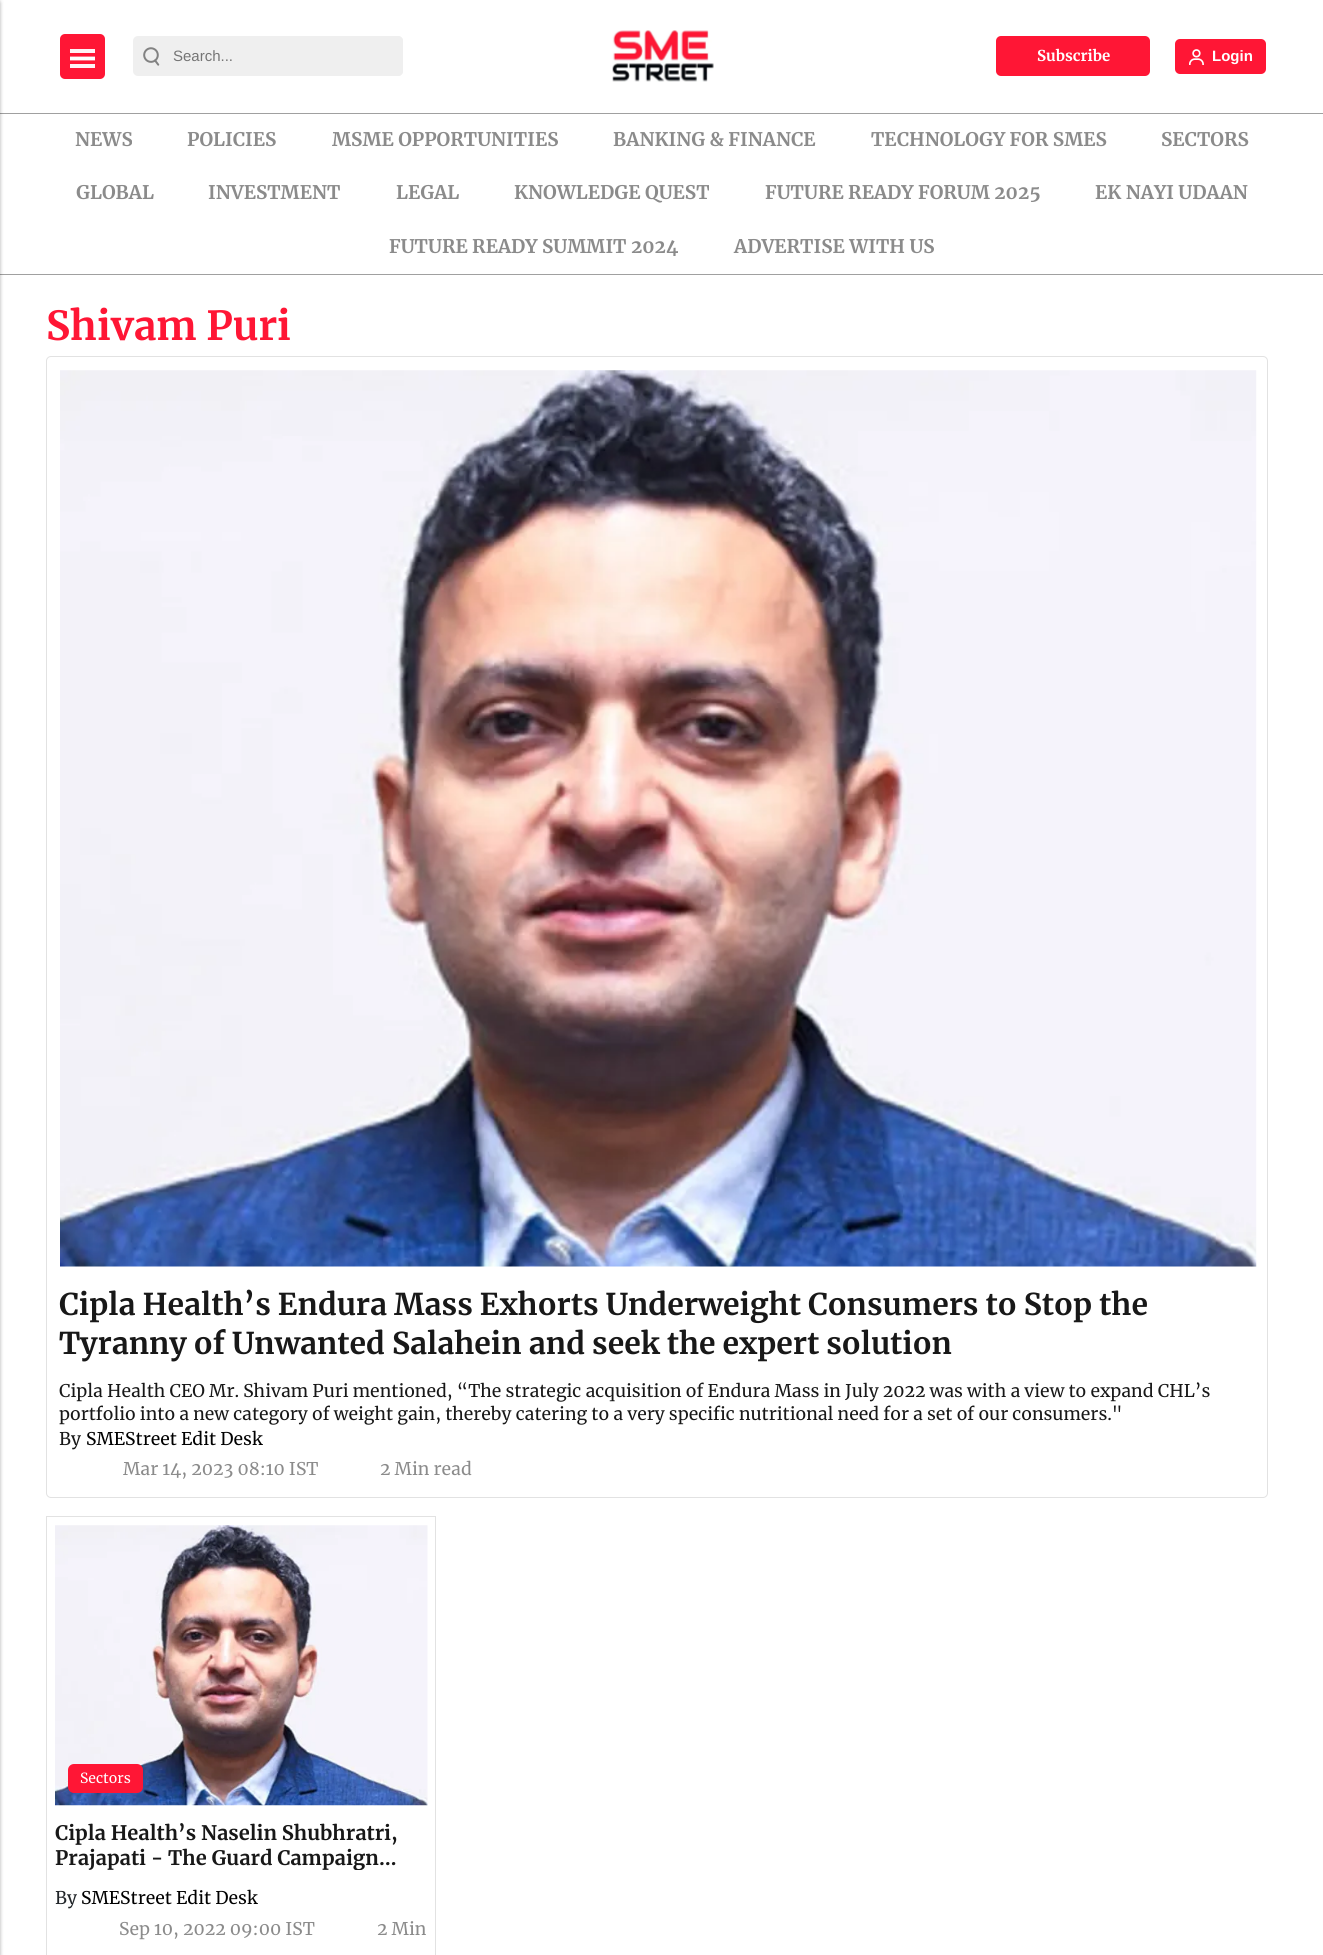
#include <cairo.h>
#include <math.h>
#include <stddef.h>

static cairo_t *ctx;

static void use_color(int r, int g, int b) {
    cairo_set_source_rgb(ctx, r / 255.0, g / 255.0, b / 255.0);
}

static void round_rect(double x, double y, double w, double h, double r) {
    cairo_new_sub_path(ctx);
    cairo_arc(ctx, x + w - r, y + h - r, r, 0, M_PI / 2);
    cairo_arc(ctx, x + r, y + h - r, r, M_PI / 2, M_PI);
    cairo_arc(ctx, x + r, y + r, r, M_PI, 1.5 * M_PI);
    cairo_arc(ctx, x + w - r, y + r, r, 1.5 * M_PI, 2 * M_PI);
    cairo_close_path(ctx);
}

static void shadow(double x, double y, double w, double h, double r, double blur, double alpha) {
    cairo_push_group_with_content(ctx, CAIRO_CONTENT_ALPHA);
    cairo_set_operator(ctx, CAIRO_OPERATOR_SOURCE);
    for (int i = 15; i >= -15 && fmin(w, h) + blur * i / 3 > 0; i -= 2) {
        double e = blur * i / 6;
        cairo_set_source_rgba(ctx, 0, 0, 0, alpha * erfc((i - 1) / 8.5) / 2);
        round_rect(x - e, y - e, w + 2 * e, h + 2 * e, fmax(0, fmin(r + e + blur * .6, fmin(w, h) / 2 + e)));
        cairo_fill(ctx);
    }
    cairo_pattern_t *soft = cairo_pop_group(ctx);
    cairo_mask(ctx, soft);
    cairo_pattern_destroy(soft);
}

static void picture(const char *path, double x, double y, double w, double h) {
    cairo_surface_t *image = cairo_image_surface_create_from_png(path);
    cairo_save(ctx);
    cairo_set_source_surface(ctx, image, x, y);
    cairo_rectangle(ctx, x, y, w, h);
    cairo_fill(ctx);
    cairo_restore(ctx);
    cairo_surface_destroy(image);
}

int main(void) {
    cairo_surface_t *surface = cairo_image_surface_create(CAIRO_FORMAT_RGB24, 1323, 1955);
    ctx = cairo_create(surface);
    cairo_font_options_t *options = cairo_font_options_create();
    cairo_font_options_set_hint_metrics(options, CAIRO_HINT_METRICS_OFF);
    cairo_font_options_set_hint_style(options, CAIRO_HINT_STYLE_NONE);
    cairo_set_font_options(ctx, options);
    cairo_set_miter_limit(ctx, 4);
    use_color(255, 255, 255);
    cairo_paint(ctx);
    use_color(160, 160, 160);
    cairo_rectangle(ctx, 0, 113, 1323, 1);
    cairo_fill(ctx);
    cairo_rectangle(ctx, 0, 274, 1323, 1);
    cairo_fill(ctx);
    use_color(0, 0, 0);
    shadow(-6, 3, 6, 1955, 0, 2, 0.22);
    shadow(-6, 0, 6, 1955, 0, 2, 0.12);
    use_color(255, 22, 53);
    round_rect(60, 34, 45, 45, 5);
    cairo_fill(ctx);
    use_color(255, 243, 245);
    cairo_rectangle(ctx, 70, 49, 25, 4);
    cairo_fill(ctx);
    cairo_new_path(ctx);
    cairo_move_to(ctx, 70, 58.5);
    cairo_line_to(ctx, 95, 58.5);
    use_color(255, 255, 255);
    cairo_set_line_width(ctx, 3.8);
    cairo_stroke(ctx);
    use_color(255, 243, 245);
    cairo_rectangle(ctx, 70, 64, 25, 4);
    cairo_fill(ctx);
    use_color(239, 239, 239);
    round_rect(133, 36, 270, 40, 5);
    cairo_fill(ctx);
    picture("img1.png", 143, 47, 17, 19);
    round_rect(170, 36, 233, 40, 5);
    cairo_fill(ctx);
    cairo_select_font_face(ctx, "Liberation Sans", CAIRO_FONT_SLANT_NORMAL, CAIRO_FONT_WEIGHT_NORMAL);
    cairo_set_font_size(ctx, 15);
    use_color(117, 117, 117);
    cairo_move_to(ctx, 173, 61);
    cairo_show_text(ctx, "Search...");
    picture("img2.png", 612, 30, 102, 52);
    use_color(255, 22, 53);
    round_rect(996, 36, 154, 40, 5);
    cairo_fill(ctx);
    cairo_select_font_face(ctx, "Merriweather", CAIRO_FONT_SLANT_NORMAL, CAIRO_FONT_WEIGHT_BOLD);
    use_color(255, 255, 255);
    cairo_move_to(ctx, 1037, 61);
    cairo_show_text(ctx, "Subscribe");
    use_color(255, 22, 53);
    round_rect(1175, 39, 91, 35, 5);
    cairo_fill(ctx);
    picture("img3.png", 1189, 49, 15, 16);
    cairo_select_font_face(ctx, "Liberation Sans", CAIRO_FONT_SLANT_NORMAL, CAIRO_FONT_WEIGHT_BOLD);
    use_color(255, 255, 255);
    cairo_move_to(ctx, 1212, 61);
    cairo_show_text(ctx, "Login");
    cairo_select_font_face(ctx, "Merriweather", CAIRO_FONT_SLANT_NORMAL, CAIRO_FONT_WEIGHT_BOLD);
    cairo_set_font_size(ctx, 18.75);
    use_color(139, 139, 139);
    cairo_move_to(ctx, 75, 146);
    cairo_show_text(ctx, "NEWS");
    cairo_move_to(ctx, 187, 146);
    cairo_show_text(ctx, "POLICIES");
    cairo_move_to(ctx, 332, 146);
    cairo_show_text(ctx, "MSME OPPORTUNITIES");
    cairo_move_to(ctx, 613, 146);
    cairo_show_text(ctx, "BANKING & FINANCE");
    cairo_move_to(ctx, 871, 146);
    cairo_show_text(ctx, "TECHNOLOGY FOR SMES");
    cairo_move_to(ctx, 1161, 146);
    cairo_show_text(ctx, "SECTORS");
    cairo_move_to(ctx, 76, 199);
    cairo_show_text(ctx, "GLOBAL");
    cairo_move_to(ctx, 208, 199);
    cairo_show_text(ctx, "INVESTMENT");
    cairo_move_to(ctx, 396, 199);
    cairo_show_text(ctx, "LEGAL");
    cairo_move_to(ctx, 514, 199);
    cairo_show_text(ctx, "KNOWLEDGE QUEST");
    cairo_move_to(ctx, 765, 199);
    cairo_show_text(ctx, "FUTURE READY FORUM 2025");
    cairo_move_to(ctx, 1095, 199);
    cairo_show_text(ctx, "EK NAYI UDAAN");
    cairo_move_to(ctx, 389, 253);
    cairo_show_text(ctx, "FUTURE READY SUMMIT 2024");
    cairo_move_to(ctx, 734, 253);
    cairo_show_text(ctx, "ADVERTISE WITH US");
    cairo_set_font_size(ctx, 40);
    use_color(255, 22, 53);
    cairo_move_to(ctx, 46, 340);
    cairo_show_text(ctx, "Shivam Puri");
    round_rect(46.5, 356.5, 1221, 1141, 4.5);
    use_color(226, 226, 226);
    cairo_set_line_width(ctx, 1);
    cairo_stroke(ctx);
    picture("img4.png", 60, 370, 1197, 897);
    cairo_set_font_size(ctx, 30);
    use_color(24, 24, 24);
    cairo_move_to(ctx, 59, 1315);
    cairo_show_text(ctx, "Cipla Health’s Endura Mass Exhorts Underweight Consumers to Stop the");
    cairo_move_to(ctx, 59, 1354);
    cairo_show_text(ctx, "Tyranny of Unwanted Salahein and seek the expert solution");
    cairo_select_font_face(ctx, "Merriweather", CAIRO_FONT_SLANT_NORMAL, CAIRO_FONT_WEIGHT_NORMAL);
    cairo_set_font_size(ctx, 17.5);
    cairo_move_to(ctx, 59, 1397);
    cairo_show_text(ctx, "Cipla Health CEO Mr. Shivam Puri mentioned, “The strategic acquisition of Endura Mass in July 2022 was with a view to expand CHL’s");
    cairo_move_to(ctx, 59, 1420);
    cairo_show_text(ctx, "portfolio into a new category of weight gain, thereby catering to a very specific nutritional need for a set of our consumers.\"");
    cairo_move_to(ctx, 59, 1445);
    cairo_show_text(ctx, "By");
    use_color(0, 0, 0);
    cairo_move_to(ctx, 86, 1445);
    cairo_show_text(ctx, "SMEStreet Edit Desk");
    use_color(139, 139, 139);
    cairo_move_to(ctx, 123, 1475);
    cairo_show_text(ctx, "Mar 14, 2023 08:10 IST");
    cairo_move_to(ctx, 380, 1475);
    cairo_show_text(ctx, "2 Min read");
    cairo_rectangle(ctx, 46.5, 1516.5, 389, 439);
    use_color(226, 226, 226);
    cairo_stroke(ctx);
    picture("img5.png", 55, 1525, 373, 281);
    use_color(255, 22, 53);
    round_rect(68, 1764, 75, 29, 6);
    cairo_fill(ctx);
    cairo_set_font_size(ctx, 14);
    use_color(255, 255, 255);
    cairo_move_to(ctx, 80, 1783);
    cairo_show_text(ctx, "Sectors");
    cairo_select_font_face(ctx, "Merriweather", CAIRO_FONT_SLANT_NORMAL, CAIRO_FONT_WEIGHT_BOLD);
    cairo_set_font_size(ctx, 20);
    use_color(24, 24, 24);
    cairo_move_to(ctx, 55, 1840);
    cairo_show_text(ctx, "Cipla Health’s Naselin Shubhratri,");
    cairo_save(ctx);
    cairo_rectangle(ctx, 55, 1816, 373, 54);
    cairo_clip(ctx);
    cairo_move_to(ctx, 55, 1865);
    cairo_show_text(ctx, "Prajapati - The Guard Campaign…");
    cairo_restore(ctx);
    cairo_select_font_face(ctx, "Merriweather", CAIRO_FONT_SLANT_NORMAL, CAIRO_FONT_WEIGHT_NORMAL);
    cairo_set_font_size(ctx, 17.5);
    use_color(33, 37, 41);
    cairo_move_to(ctx, 55, 1904);
    cairo_show_text(ctx, "By");
    use_color(0, 0, 0);
    cairo_move_to(ctx, 81, 1904);
    cairo_show_text(ctx, "SMEStreet Edit Desk");
    use_color(139, 139, 139);
    cairo_move_to(ctx, 119, 1935);
    cairo_show_text(ctx, "Sep 10, 2022 09:00 IST");
    cairo_move_to(ctx, 377, 1935);
    cairo_show_text(ctx, "2 Min");
    cairo_surface_write_to_png(surface, "result.png");
    cairo_font_options_destroy(options);
    cairo_destroy(ctx);
    cairo_surface_destroy(surface);
    return 0;
}
